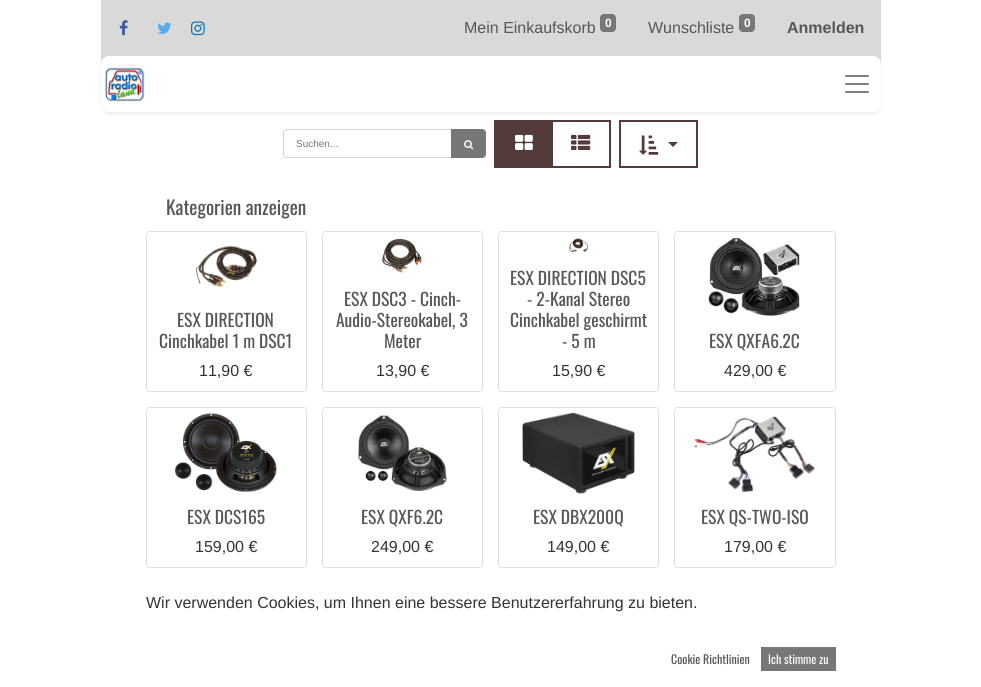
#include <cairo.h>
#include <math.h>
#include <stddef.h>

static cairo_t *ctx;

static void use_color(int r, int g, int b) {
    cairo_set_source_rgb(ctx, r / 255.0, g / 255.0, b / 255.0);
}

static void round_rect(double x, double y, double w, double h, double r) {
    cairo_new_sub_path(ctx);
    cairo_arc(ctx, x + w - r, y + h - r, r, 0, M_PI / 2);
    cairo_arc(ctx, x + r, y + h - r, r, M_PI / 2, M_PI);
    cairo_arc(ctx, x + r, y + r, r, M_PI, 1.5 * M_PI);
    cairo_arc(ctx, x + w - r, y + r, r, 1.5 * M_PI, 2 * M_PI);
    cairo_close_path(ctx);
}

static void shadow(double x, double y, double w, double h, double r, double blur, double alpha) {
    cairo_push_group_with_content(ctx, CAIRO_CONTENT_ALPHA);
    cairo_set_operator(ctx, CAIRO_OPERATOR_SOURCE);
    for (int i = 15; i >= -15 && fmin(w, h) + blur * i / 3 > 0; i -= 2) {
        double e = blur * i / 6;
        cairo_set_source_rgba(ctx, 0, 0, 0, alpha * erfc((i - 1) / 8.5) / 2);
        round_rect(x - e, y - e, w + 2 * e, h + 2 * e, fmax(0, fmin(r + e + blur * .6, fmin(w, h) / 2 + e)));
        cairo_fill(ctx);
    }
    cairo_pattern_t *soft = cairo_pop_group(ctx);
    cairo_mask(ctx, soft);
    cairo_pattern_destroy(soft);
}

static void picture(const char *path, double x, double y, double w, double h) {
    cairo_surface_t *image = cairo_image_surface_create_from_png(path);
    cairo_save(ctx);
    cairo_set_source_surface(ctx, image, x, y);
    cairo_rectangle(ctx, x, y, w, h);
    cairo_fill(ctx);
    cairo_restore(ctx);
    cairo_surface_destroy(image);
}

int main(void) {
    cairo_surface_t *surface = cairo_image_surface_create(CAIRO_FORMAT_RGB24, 981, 687);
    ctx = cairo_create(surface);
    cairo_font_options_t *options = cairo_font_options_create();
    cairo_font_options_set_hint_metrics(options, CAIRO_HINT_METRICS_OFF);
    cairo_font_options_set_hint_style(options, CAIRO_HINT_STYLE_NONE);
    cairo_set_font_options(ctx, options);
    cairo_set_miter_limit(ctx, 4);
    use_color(255, 255, 255);
    cairo_paint(ctx);
    use_color(217, 217, 217);
    cairo_rectangle(ctx, 101, 0, 780, 64);
    cairo_fill(ctx);
    picture("img1.png", 119, 20, 9, 16);
    picture("img2.png", 157, 22, 15, 12);
    picture("img3.png", 191, 21, 14, 15);
    cairo_select_font_face(ctx, "Liberation Sans", CAIRO_FONT_SLANT_NORMAL, CAIRO_FONT_WEIGHT_NORMAL);
    cairo_set_font_size(ctx, 16);
    use_color(86, 86, 86);
    cairo_move_to(ctx, 464, 33);
    cairo_show_text(ctx, "Mein Einkaufskorb");
    use_color(119, 119, 119);
    round_rect(600, 14, 16, 18, 4);
    cairo_fill(ctx);
    cairo_select_font_face(ctx, "Liberation Sans", CAIRO_FONT_SLANT_NORMAL, CAIRO_FONT_WEIGHT_BOLD);
    cairo_set_font_size(ctx, 12);
    use_color(255, 255, 255);
    cairo_move_to(ctx, 605, 27);
    cairo_show_text(ctx, "0");
    cairo_select_font_face(ctx, "Liberation Sans", CAIRO_FONT_SLANT_NORMAL, CAIRO_FONT_WEIGHT_NORMAL);
    cairo_set_font_size(ctx, 16);
    use_color(86, 86, 86);
    cairo_move_to(ctx, 648, 33);
    cairo_show_text(ctx, "Wunschliste");
    use_color(119, 119, 119);
    round_rect(739, 14, 16, 18, 4);
    cairo_fill(ctx);
    cairo_select_font_face(ctx, "Liberation Sans", CAIRO_FONT_SLANT_NORMAL, CAIRO_FONT_WEIGHT_BOLD);
    cairo_set_font_size(ctx, 12);
    use_color(255, 255, 255);
    cairo_move_to(ctx, 744, 27);
    cairo_show_text(ctx, "0");
    cairo_set_font_size(ctx, 16);
    use_color(86, 86, 86);
    cairo_move_to(ctx, 787, 33);
    cairo_show_text(ctx, "Anmelden");
    cairo_new_path(ctx);
    cairo_move_to(ctx, 552, 121);
    cairo_line_to(ctx, 610, 121);
    cairo_line_to(ctx, 610, 167);
    cairo_line_to(ctx, 552, 167);
    cairo_close_path(ctx);
    use_color(84, 59, 59);
    cairo_stroke(ctx);
    cairo_new_path(ctx);
    cairo_move_to(ctx, 495, 121);
    cairo_line_to(ctx, 552, 121);
    cairo_line_to(ctx, 552, 167);
    cairo_line_to(ctx, 495, 167);
    cairo_close_path(ctx);
    cairo_fill_preserve(ctx);
    cairo_stroke(ctx);
    cairo_rectangle(ctx, 620, 121, 77, 46);
    cairo_stroke(ctx);
    use_color(0, 0, 0);
    shadow(101, 58, 780, 56, 8, 2, 0.07);
    use_color(255, 255, 255);
    round_rect(101, 56, 780, 56, 8);
    cairo_fill(ctx);
    picture("img4.png", 105, 67, 40, 35);
    picture("img5.png", 845, 75, 24, 18);
    cairo_new_path(ctx);
    cairo_move_to(ctx, 287, 129.5);
    cairo_line_to(ctx, 451.5, 129.5);
    cairo_line_to(ctx, 451.5, 157.5);
    cairo_line_to(ctx, 287, 157.5);
    cairo_curve_to(ctx, 285, 157.5, 283.5, 156, 283.5, 154);
    cairo_line_to(ctx, 283.5, 133);
    cairo_curve_to(ctx, 283.5, 131, 285, 129.5, 287, 129.5);
    cairo_close_path(ctx);
    use_color(206, 212, 218);
    cairo_set_line_width(ctx, 1);
    cairo_stroke(ctx);
    cairo_select_font_face(ctx, "Liberation Sans", CAIRO_FONT_SLANT_NORMAL, CAIRO_FONT_WEIGHT_NORMAL);
    cairo_set_font_size(ctx, 10);
    use_color(119, 119, 119);
    cairo_move_to(ctx, 296, 147);
    cairo_show_text(ctx, "Suchen...");
    cairo_new_path(ctx);
    cairo_move_to(ctx, 451.5, 129.5);
    cairo_line_to(ctx, 482, 129.5);
    cairo_curve_to(ctx, 484, 129.5, 485.5, 131, 485.5, 133);
    cairo_line_to(ctx, 485.5, 154);
    cairo_curve_to(ctx, 485.5, 156, 484, 157.5, 482, 157.5);
    cairo_line_to(ctx, 451.5, 157.5);
    cairo_close_path(ctx);
    cairo_fill_preserve(ctx);
    cairo_stroke(ctx);
    picture("img6.png", 464, 140, 10, 10);
    picture("img7.png", 515, 134, 18, 16);
    picture("img8.png", 571, 134, 20, 16);
    picture("img9.png", 639, 135, 20, 20);
    use_color(84, 59, 59);
    cairo_new_path(ctx);
    cairo_move_to(ctx, 668, 142);
    cairo_line_to(ctx, 678, 142);
    cairo_line_to(ctx, 673, 147);
    cairo_close_path(ctx);
    cairo_fill(ctx);
    cairo_select_font_face(ctx, "Oswald", CAIRO_FONT_SLANT_NORMAL, CAIRO_FONT_WEIGHT_NORMAL);
    cairo_set_font_size(ctx, 19.25);
    use_color(86, 86, 86);
    cairo_move_to(ctx, 166, 215);
    cairo_show_text(ctx, "Kategorien anzeigen");
    round_rect(146.5, 231.5, 160, 160, 3.5);
    use_color(223, 223, 223);
    cairo_stroke(ctx);
    cairo_set_source_rgba(ctx, 1, 1, 1, 0.9);
    cairo_new_path(ctx);
    cairo_move_to(ctx, 150, 232);
    cairo_line_to(ctx, 303, 232);
    cairo_curve_to(ctx, 304.5, 232, 306, 233.5, 306, 235);
    cairo_line_to(ctx, 306, 301);
    cairo_line_to(ctx, 147, 301);
    cairo_line_to(ctx, 147, 235);
    cairo_curve_to(ctx, 147, 233.5, 148.5, 232, 150, 232);
    cairo_close_path(ctx);
    cairo_fill(ctx);
    picture("img10.png", 196, 245, 61, 42);
    cairo_new_path(ctx);
    cairo_move_to(ctx, 147, 301);
    cairo_line_to(ctx, 306, 301);
    cairo_line_to(ctx, 306, 388);
    cairo_curve_to(ctx, 306, 389.5, 304.5, 391, 303, 391);
    cairo_line_to(ctx, 150, 391);
    cairo_curve_to(ctx, 148.5, 391, 147, 389.5, 147, 388);
    cairo_close_path(ctx);
    cairo_fill(ctx);
    cairo_set_font_size(ctx, 17.5);
    use_color(86, 86, 86);
    cairo_move_to(ctx, 177, 327);
    cairo_show_text(ctx, "ESX DIRECTION");
    cairo_move_to(ctx, 159, 348);
    cairo_show_text(ctx, "Cinchkabel 1 m DSC1");
    cairo_select_font_face(ctx, "Liberation Sans", CAIRO_FONT_SLANT_NORMAL, CAIRO_FONT_WEIGHT_NORMAL);
    cairo_set_font_size(ctx, 16);
    use_color(51, 51, 51);
    cairo_move_to(ctx, 199, 376);
    cairo_show_text(ctx, "11,90 €");
    round_rect(322.5, 231.5, 160, 160, 3.5);
    use_color(223, 223, 223);
    cairo_stroke(ctx);
    cairo_set_source_rgba(ctx, 1, 1, 1, 0.9);
    cairo_new_path(ctx);
    cairo_move_to(ctx, 326, 232);
    cairo_line_to(ctx, 479, 232);
    cairo_curve_to(ctx, 480.5, 232, 482, 233.5, 482, 235);
    cairo_line_to(ctx, 482, 280);
    cairo_line_to(ctx, 323, 280);
    cairo_line_to(ctx, 323, 235);
    cairo_curve_to(ctx, 323, 233.5, 324.5, 232, 326, 232);
    cairo_close_path(ctx);
    cairo_fill(ctx);
    picture("img11.png", 382, 238, 40, 35);
    cairo_new_path(ctx);
    cairo_move_to(ctx, 323, 280);
    cairo_line_to(ctx, 482, 280);
    cairo_line_to(ctx, 482, 388);
    cairo_curve_to(ctx, 482, 389.5, 480.5, 391, 479, 391);
    cairo_line_to(ctx, 326, 391);
    cairo_curve_to(ctx, 324.5, 391, 323, 389.5, 323, 388);
    cairo_close_path(ctx);
    cairo_fill(ctx);
    cairo_select_font_face(ctx, "Oswald", CAIRO_FONT_SLANT_NORMAL, CAIRO_FONT_WEIGHT_NORMAL);
    cairo_set_font_size(ctx, 17.5);
    use_color(86, 86, 86);
    cairo_move_to(ctx, 344, 306);
    cairo_show_text(ctx, "ESX DSC3 - Cinch-");
    cairo_move_to(ctx, 336, 327);
    cairo_show_text(ctx, "Audio-Stereokabel, 3");
    cairo_move_to(ctx, 384, 348);
    cairo_show_text(ctx, "Meter");
    cairo_select_font_face(ctx, "Liberation Sans", CAIRO_FONT_SLANT_NORMAL, CAIRO_FONT_WEIGHT_NORMAL);
    cairo_set_font_size(ctx, 16);
    use_color(51, 51, 51);
    cairo_move_to(ctx, 376, 376);
    cairo_show_text(ctx, "13,90 €");
    round_rect(498.5, 231.5, 160, 160, 3.5);
    use_color(223, 223, 223);
    cairo_stroke(ctx);
    cairo_set_source_rgba(ctx, 1, 1, 1, 0.9);
    cairo_new_path(ctx);
    cairo_move_to(ctx, 502, 232);
    cairo_line_to(ctx, 655, 232);
    cairo_curve_to(ctx, 656.5, 232, 658, 233.5, 658, 235);
    cairo_line_to(ctx, 658, 259);
    cairo_line_to(ctx, 499, 259);
    cairo_line_to(ctx, 499, 235);
    cairo_curve_to(ctx, 499, 233.5, 500.5, 232, 502, 232);
    cairo_close_path(ctx);
    cairo_fill(ctx);
    picture("img12.png", 569, 238, 19, 15);
    cairo_new_path(ctx);
    cairo_move_to(ctx, 499, 259);
    cairo_line_to(ctx, 658, 259);
    cairo_line_to(ctx, 658, 388);
    cairo_curve_to(ctx, 658, 389.5, 656.5, 391, 655, 391);
    cairo_line_to(ctx, 502, 391);
    cairo_curve_to(ctx, 500.5, 391, 499, 389.5, 499, 388);
    cairo_close_path(ctx);
    cairo_fill(ctx);
    cairo_select_font_face(ctx, "Oswald", CAIRO_FONT_SLANT_NORMAL, CAIRO_FONT_WEIGHT_NORMAL);
    cairo_set_font_size(ctx, 17.5);
    use_color(86, 86, 86);
    cairo_move_to(ctx, 510, 285);
    cairo_show_text(ctx, "ESX DIRECTION DSC5");
    cairo_move_to(ctx, 527, 306);
    cairo_show_text(ctx, "- 2-Kanal Stereo");
    cairo_move_to(ctx, 510, 327);
    cairo_show_text(ctx, "Cinchkabel geschirmt");
    cairo_move_to(ctx, 562, 348);
    cairo_show_text(ctx, "- 5 m");
    cairo_select_font_face(ctx, "Liberation Sans", CAIRO_FONT_SLANT_NORMAL, CAIRO_FONT_WEIGHT_NORMAL);
    cairo_set_font_size(ctx, 16);
    use_color(51, 51, 51);
    cairo_move_to(ctx, 552, 376);
    cairo_show_text(ctx, "15,90 €");
    round_rect(674.5, 231.5, 161, 160, 3.5);
    use_color(223, 223, 223);
    cairo_stroke(ctx);
    cairo_set_source_rgba(ctx, 1, 1, 1, 0.9);
    cairo_new_path(ctx);
    cairo_move_to(ctx, 678, 232);
    cairo_line_to(ctx, 832, 232);
    cairo_curve_to(ctx, 833.5, 232, 835, 233.5, 835, 235);
    cairo_line_to(ctx, 835, 322);
    cairo_line_to(ctx, 675, 322);
    cairo_line_to(ctx, 675, 235);
    cairo_curve_to(ctx, 675, 233.5, 676.5, 232, 678, 232);
    cairo_close_path(ctx);
    cairo_fill(ctx);
    picture("img13.png", 708, 237, 92, 79);
    cairo_new_path(ctx);
    cairo_move_to(ctx, 675, 322);
    cairo_line_to(ctx, 835, 322);
    cairo_line_to(ctx, 835, 388);
    cairo_curve_to(ctx, 835, 389.5, 833.5, 391, 832, 391);
    cairo_line_to(ctx, 678, 391);
    cairo_curve_to(ctx, 676.5, 391, 675, 389.5, 675, 388);
    cairo_close_path(ctx);
    cairo_fill(ctx);
    cairo_select_font_face(ctx, "Oswald", CAIRO_FONT_SLANT_NORMAL, CAIRO_FONT_WEIGHT_NORMAL);
    cairo_set_font_size(ctx, 17.5);
    use_color(86, 86, 86);
    cairo_move_to(ctx, 709, 348);
    cairo_show_text(ctx, "ESX QXFA6.2C");
    cairo_select_font_face(ctx, "Liberation Sans", CAIRO_FONT_SLANT_NORMAL, CAIRO_FONT_WEIGHT_NORMAL);
    cairo_set_font_size(ctx, 16);
    use_color(51, 51, 51);
    cairo_move_to(ctx, 724, 376);
    cairo_show_text(ctx, "429,00 €");
    round_rect(146.5, 407.5, 160, 160, 3.5);
    use_color(223, 223, 223);
    cairo_stroke(ctx);
    cairo_set_source_rgba(ctx, 1, 1, 1, 0.9);
    cairo_new_path(ctx);
    cairo_move_to(ctx, 150, 408);
    cairo_line_to(ctx, 303, 408);
    cairo_curve_to(ctx, 304.5, 408, 306, 409.5, 306, 411);
    cairo_line_to(ctx, 306, 498);
    cairo_line_to(ctx, 147, 498);
    cairo_line_to(ctx, 147, 411);
    cairo_curve_to(ctx, 147, 409.5, 148.5, 408, 150, 408);
    cairo_close_path(ctx);
    cairo_fill(ctx);
    picture("img14.png", 174, 413, 103, 80);
    cairo_new_path(ctx);
    cairo_move_to(ctx, 147, 498);
    cairo_line_to(ctx, 306, 498);
    cairo_line_to(ctx, 306, 564);
    cairo_curve_to(ctx, 306, 565.5, 304.5, 567, 303, 567);
    cairo_line_to(ctx, 150, 567);
    cairo_curve_to(ctx, 148.5, 567, 147, 565.5, 147, 564);
    cairo_close_path(ctx);
    cairo_fill(ctx);
    cairo_select_font_face(ctx, "Oswald", CAIRO_FONT_SLANT_NORMAL, CAIRO_FONT_WEIGHT_NORMAL);
    cairo_set_font_size(ctx, 17.5);
    use_color(86, 86, 86);
    cairo_move_to(ctx, 187, 524);
    cairo_show_text(ctx, "ESX DCS165");
    cairo_select_font_face(ctx, "Liberation Sans", CAIRO_FONT_SLANT_NORMAL, CAIRO_FONT_WEIGHT_NORMAL);
    cairo_set_font_size(ctx, 16);
    use_color(51, 51, 51);
    cairo_move_to(ctx, 195, 552);
    cairo_show_text(ctx, "159,00 €");
    round_rect(322.5, 407.5, 160, 160, 3.5);
    use_color(223, 223, 223);
    cairo_stroke(ctx);
    cairo_set_source_rgba(ctx, 1, 1, 1, 0.9);
    cairo_new_path(ctx);
    cairo_move_to(ctx, 326, 408);
    cairo_line_to(ctx, 479, 408);
    cairo_curve_to(ctx, 480.5, 408, 482, 409.5, 482, 411);
    cairo_line_to(ctx, 482, 498);
    cairo_line_to(ctx, 323, 498);
    cairo_line_to(ctx, 323, 411);
    cairo_curve_to(ctx, 323, 409.5, 324.5, 408, 326, 408);
    cairo_close_path(ctx);
    cairo_fill(ctx);
    picture("img15.png", 358, 415, 89, 76);
    cairo_new_path(ctx);
    cairo_move_to(ctx, 323, 498);
    cairo_line_to(ctx, 482, 498);
    cairo_line_to(ctx, 482, 564);
    cairo_curve_to(ctx, 482, 565.5, 480.5, 567, 479, 567);
    cairo_line_to(ctx, 326, 567);
    cairo_curve_to(ctx, 324.5, 567, 323, 565.5, 323, 564);
    cairo_close_path(ctx);
    cairo_fill(ctx);
    cairo_select_font_face(ctx, "Oswald", CAIRO_FONT_SLANT_NORMAL, CAIRO_FONT_WEIGHT_NORMAL);
    cairo_set_font_size(ctx, 17.5);
    use_color(86, 86, 86);
    cairo_move_to(ctx, 361, 524);
    cairo_show_text(ctx, "ESX QXF6.2C");
    cairo_select_font_face(ctx, "Liberation Sans", CAIRO_FONT_SLANT_NORMAL, CAIRO_FONT_WEIGHT_NORMAL);
    cairo_set_font_size(ctx, 16);
    use_color(51, 51, 51);
    cairo_move_to(ctx, 371, 552);
    cairo_show_text(ctx, "249,00 €");
    round_rect(498.5, 407.5, 160, 160, 3.5);
    use_color(223, 223, 223);
    cairo_stroke(ctx);
    cairo_set_source_rgba(ctx, 1, 1, 1, 0.9);
    cairo_new_path(ctx);
    cairo_move_to(ctx, 502, 408);
    cairo_line_to(ctx, 655, 408);
    cairo_curve_to(ctx, 656.5, 408, 658, 409.5, 658, 411);
    cairo_line_to(ctx, 658, 498);
    cairo_line_to(ctx, 499, 498);
    cairo_line_to(ctx, 499, 411);
    cairo_curve_to(ctx, 499, 409.5, 500.5, 408, 502, 408);
    cairo_close_path(ctx);
    cairo_fill(ctx);
    picture("img16.png", 522, 412, 113, 82);
    cairo_new_path(ctx);
    cairo_move_to(ctx, 499, 498);
    cairo_line_to(ctx, 658, 498);
    cairo_line_to(ctx, 658, 564);
    cairo_curve_to(ctx, 658, 565.5, 656.5, 567, 655, 567);
    cairo_line_to(ctx, 502, 567);
    cairo_curve_to(ctx, 500.5, 567, 499, 565.5, 499, 564);
    cairo_close_path(ctx);
    cairo_fill(ctx);
    cairo_select_font_face(ctx, "Oswald", CAIRO_FONT_SLANT_NORMAL, CAIRO_FONT_WEIGHT_NORMAL);
    cairo_set_font_size(ctx, 17.5);
    use_color(86, 86, 86);
    cairo_move_to(ctx, 533, 524);
    cairo_show_text(ctx, "ESX DBX200Q");
    cairo_select_font_face(ctx, "Liberation Sans", CAIRO_FONT_SLANT_NORMAL, CAIRO_FONT_WEIGHT_NORMAL);
    cairo_set_font_size(ctx, 16);
    use_color(51, 51, 51);
    cairo_move_to(ctx, 547, 552);
    cairo_show_text(ctx, "149,00 €");
    round_rect(674.5, 407.5, 161, 160, 3.5);
    use_color(223, 223, 223);
    cairo_stroke(ctx);
    cairo_set_source_rgba(ctx, 1, 1, 1, 0.9);
    cairo_new_path(ctx);
    cairo_move_to(ctx, 678, 408);
    cairo_line_to(ctx, 832, 408);
    cairo_curve_to(ctx, 833.5, 408, 835, 409.5, 835, 411);
    cairo_line_to(ctx, 835, 498);
    cairo_line_to(ctx, 675, 498);
    cairo_line_to(ctx, 675, 411);
    cairo_curve_to(ctx, 675, 409.5, 676.5, 408, 678, 408);
    cairo_close_path(ctx);
    cairo_fill(ctx);
    picture("img17.png", 692, 415, 124, 78);
    cairo_new_path(ctx);
    cairo_move_to(ctx, 675, 498);
    cairo_line_to(ctx, 835, 498);
    cairo_line_to(ctx, 835, 564);
    cairo_curve_to(ctx, 835, 565.5, 833.5, 567, 832, 567);
    cairo_line_to(ctx, 678, 567);
    cairo_curve_to(ctx, 676.5, 567, 675, 565.5, 675, 564);
    cairo_close_path(ctx);
    cairo_fill(ctx);
    cairo_select_font_face(ctx, "Oswald", CAIRO_FONT_SLANT_NORMAL, CAIRO_FONT_WEIGHT_NORMAL);
    cairo_set_font_size(ctx, 17.5);
    use_color(86, 86, 86);
    cairo_move_to(ctx, 701, 524);
    cairo_show_text(ctx, "ESX QS-TWO-ISO");
    cairo_select_font_face(ctx, "Liberation Sans", CAIRO_FONT_SLANT_NORMAL, CAIRO_FONT_WEIGHT_NORMAL);
    cairo_set_font_size(ctx, 16);
    use_color(51, 51, 51);
    cairo_move_to(ctx, 724, 552);
    cairo_show_text(ctx, "179,00 €");
    cairo_move_to(ctx, 146, 608);
    cairo_show_text(ctx, "Wir verwenden Cookies, um Ihnen eine bessere Benutzererfahrung zu bieten.");
    cairo_select_font_face(ctx, "Oswald", CAIRO_FONT_SLANT_NORMAL, CAIRO_FONT_WEIGHT_NORMAL);
    cairo_set_font_size(ctx, 12);
    use_color(86, 86, 86);
    cairo_move_to(ctx, 671, 664);
    cairo_show_text(ctx, "Cookie Richtlinien");
    use_color(119, 119, 119);
    cairo_rectangle(ctx, 761, 647, 75, 24);
    cairo_fill(ctx);
    use_color(255, 255, 255);
    cairo_move_to(ctx, 768, 664);
    cairo_show_text(ctx, "Ich stimme zu");
    cairo_surface_write_to_png(surface, "result.png");
    cairo_font_options_destroy(options);
    cairo_destroy(ctx);
    cairo_surface_destroy(surface);
    return 0;
}
